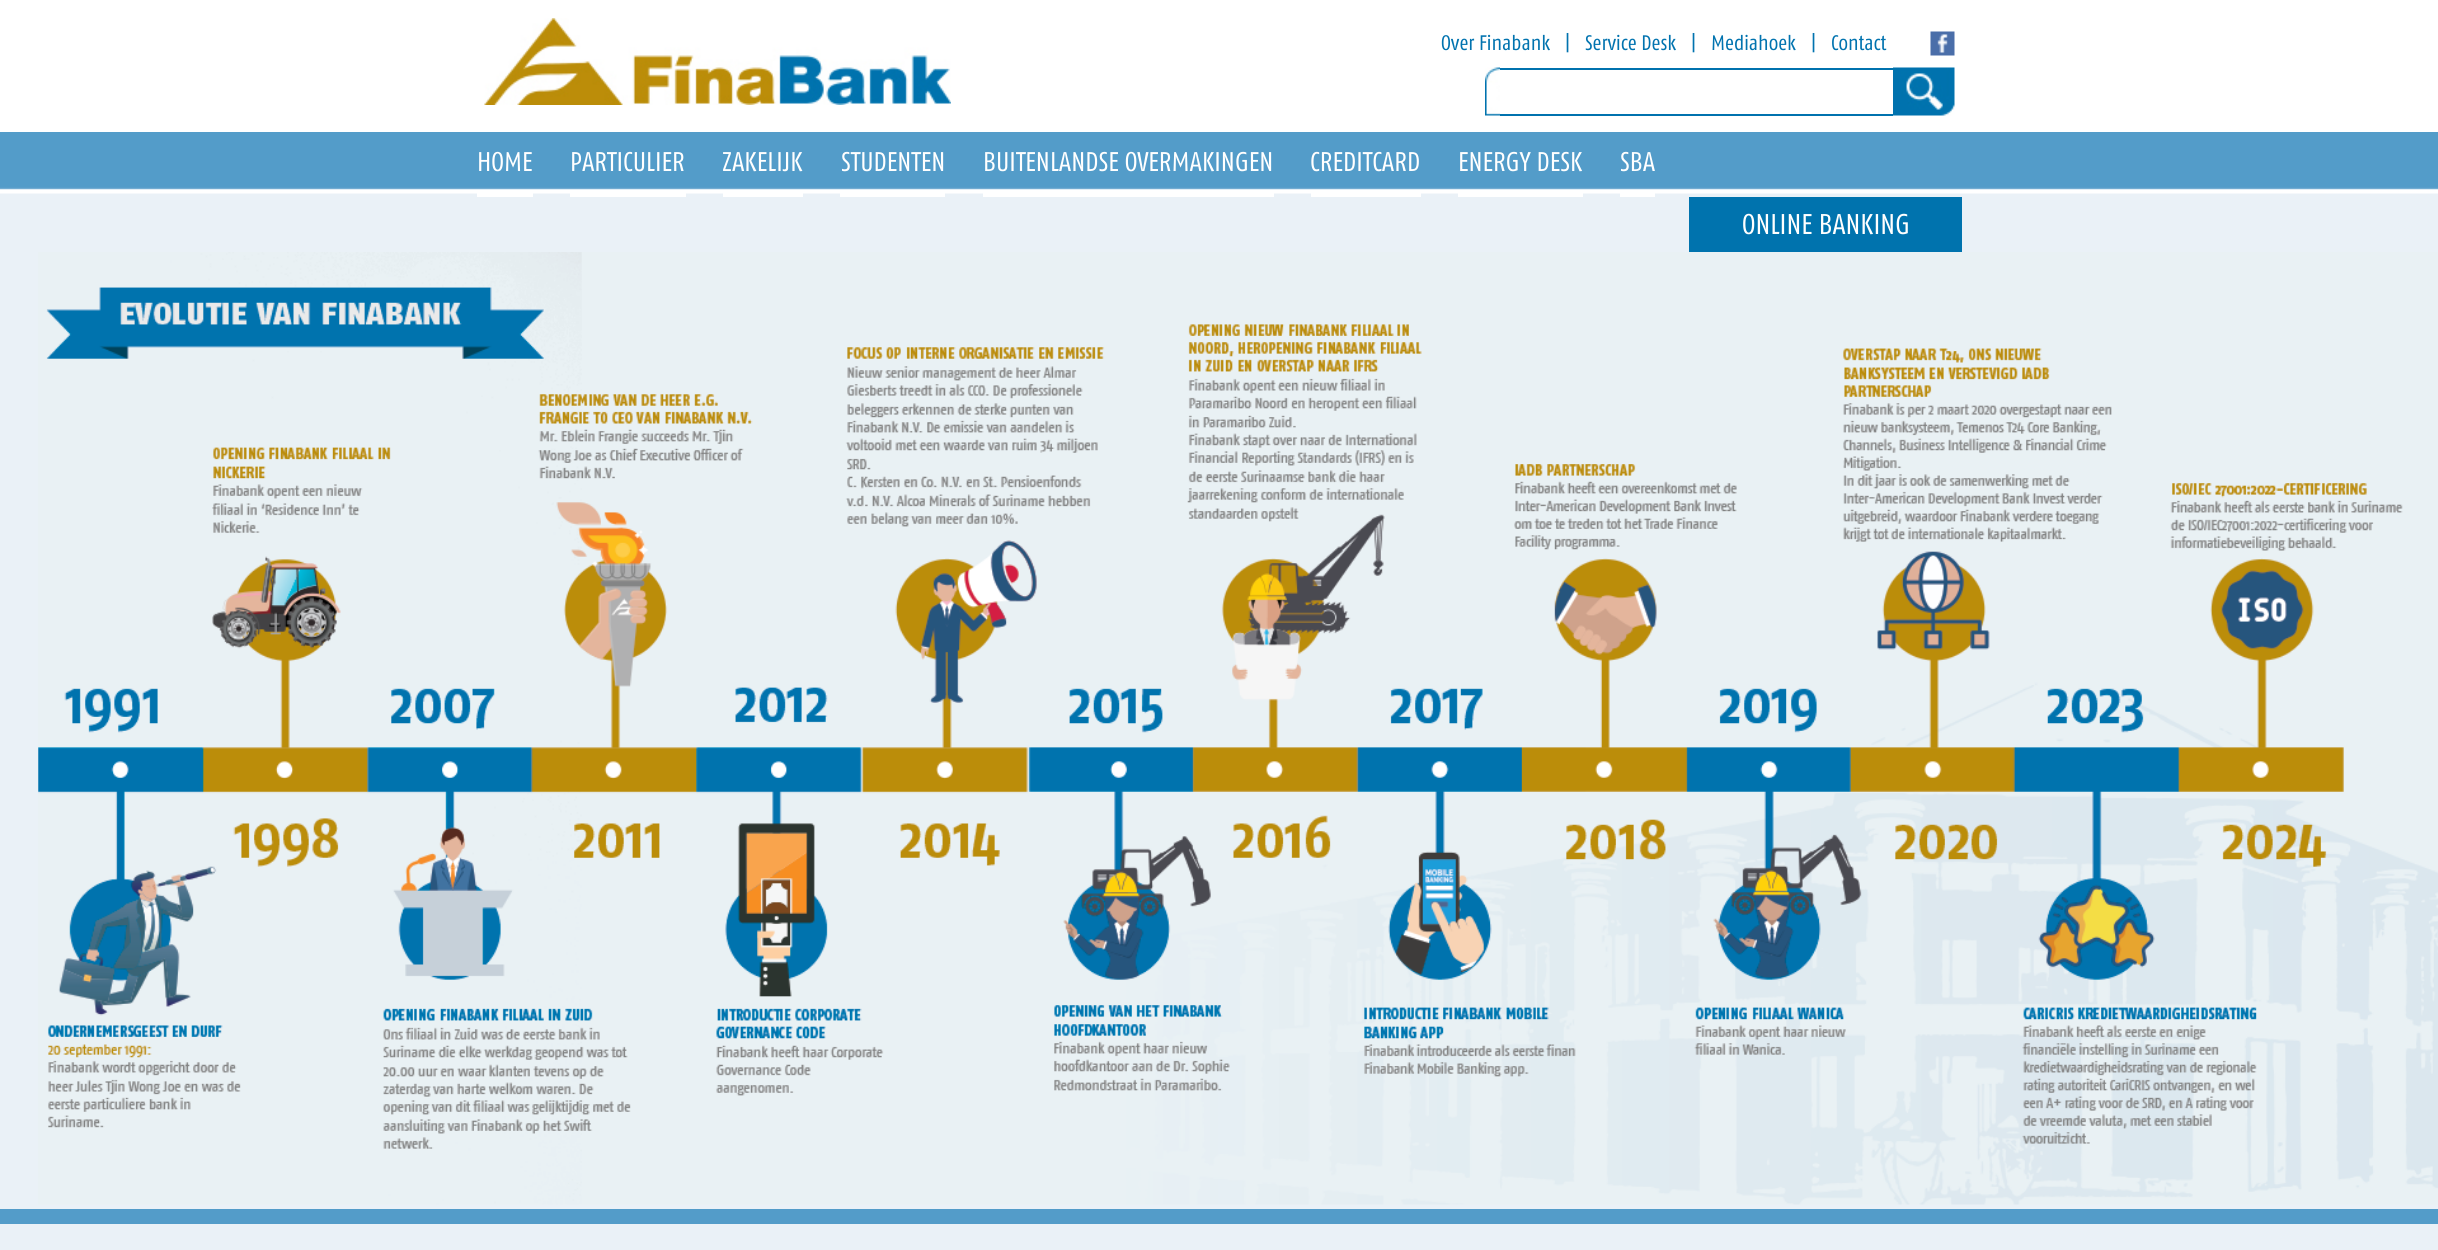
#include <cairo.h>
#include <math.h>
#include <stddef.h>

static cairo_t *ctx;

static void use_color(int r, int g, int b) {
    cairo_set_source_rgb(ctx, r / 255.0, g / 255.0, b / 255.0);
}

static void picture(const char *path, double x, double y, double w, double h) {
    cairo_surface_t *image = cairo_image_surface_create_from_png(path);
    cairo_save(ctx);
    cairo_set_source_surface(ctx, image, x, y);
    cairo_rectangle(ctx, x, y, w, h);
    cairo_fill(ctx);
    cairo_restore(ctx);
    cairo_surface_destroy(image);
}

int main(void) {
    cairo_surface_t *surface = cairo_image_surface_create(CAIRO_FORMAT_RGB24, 2438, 1250);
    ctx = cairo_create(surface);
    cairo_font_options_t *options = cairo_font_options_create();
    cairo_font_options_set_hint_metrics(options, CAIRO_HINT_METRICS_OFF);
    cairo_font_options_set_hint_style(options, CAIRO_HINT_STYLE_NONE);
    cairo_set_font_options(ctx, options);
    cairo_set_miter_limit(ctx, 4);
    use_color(234, 241, 247);
    cairo_paint(ctx);
    use_color(255, 255, 255);
    cairo_rectangle(ctx, 0, 0, 2438, 132);
    cairo_fill(ctx);
    picture("img1.png", 484, 18, 467, 87);
    cairo_select_font_face(ctx, "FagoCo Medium", CAIRO_FONT_SLANT_NORMAL, CAIRO_FONT_WEIGHT_NORMAL);
    cairo_set_font_size(ctx, 21);
    use_color(1, 115, 175);
    cairo_move_to(ctx, 1441, 50);
    cairo_show_text(ctx, "Over Finabank");
    cairo_move_to(ctx, 1565, 50);
    cairo_show_text(ctx, "|");
    cairo_move_to(ctx, 1585, 50);
    cairo_show_text(ctx, "Service Desk");
    cairo_move_to(ctx, 1691, 50);
    cairo_show_text(ctx, "|");
    cairo_move_to(ctx, 1711, 50);
    cairo_show_text(ctx, "Mediahoek");
    cairo_move_to(ctx, 1811, 50);
    cairo_show_text(ctx, "|");
    cairo_move_to(ctx, 1831, 50);
    cairo_show_text(ctx, "Contact");
    picture("img2.png", 1930, 31, 25, 25);
    picture("img3.png", 1485, 67, 15, 49);
    use_color(0, 114, 174);
    cairo_rectangle(ctx, 1500, 68, 393, 2);
    cairo_fill(ctx);
    cairo_rectangle(ctx, 1500, 114, 393, 2);
    cairo_fill(ctx);
    picture("img4.png", 1893, 67, 62, 49);
    picture("img5.png", 0, 132, 2438, 62);
    use_color(255, 255, 255);
    cairo_rectangle(ctx, 477, 193, 56, 4);
    cairo_fill(ctx);
    cairo_set_font_size(ctx, 27);
    cairo_move_to(ctx, 477, 171);
    cairo_show_text(ctx, "HOME");
    cairo_rectangle(ctx, 570, 193, 116, 4);
    cairo_fill(ctx);
    cairo_move_to(ctx, 570, 171);
    cairo_show_text(ctx, "PARTICULIER");
    cairo_rectangle(ctx, 723, 193, 80, 4);
    cairo_fill(ctx);
    cairo_move_to(ctx, 722, 171);
    cairo_show_text(ctx, "ZAKELIJK");
    cairo_rectangle(ctx, 840, 193, 105, 4);
    cairo_fill(ctx);
    cairo_move_to(ctx, 841, 171);
    cairo_show_text(ctx, "STUDENTEN");
    cairo_rectangle(ctx, 983, 193, 291, 4);
    cairo_fill(ctx);
    cairo_move_to(ctx, 983, 171);
    cairo_show_text(ctx, "BUITENLANDSE OVERMAKINGEN");
    cairo_rectangle(ctx, 1311, 193, 110, 4);
    cairo_fill(ctx);
    cairo_move_to(ctx, 1310, 171);
    cairo_show_text(ctx, "CREDITCARD");
    cairo_rectangle(ctx, 1458, 193, 125, 4);
    cairo_fill(ctx);
    cairo_move_to(ctx, 1458, 171);
    cairo_show_text(ctx, "ENERGY DESK");
    cairo_rectangle(ctx, 1620, 193, 35, 4);
    cairo_fill(ctx);
    cairo_move_to(ctx, 1620, 171);
    cairo_show_text(ctx, "SBA");
    use_color(0, 115, 174);
    cairo_rectangle(ctx, 1689, 197, 273, 55);
    cairo_fill(ctx);
    cairo_set_font_size(ctx, 28.5);
    use_color(255, 255, 255);
    cairo_move_to(ctx, 1742, 234);
    cairo_show_text(ctx, "ONLINE BANKING");
    use_color(83, 156, 201);
    cairo_rectangle(ctx, 0, 1209, 2438, 15);
    cairo_fill(ctx);
    picture("img6.png", 38, 252, 2400, 953);
    cairo_surface_write_to_png(surface, "result.png");
    cairo_font_options_destroy(options);
    cairo_destroy(ctx);
    cairo_surface_destroy(surface);
    return 0;
}
